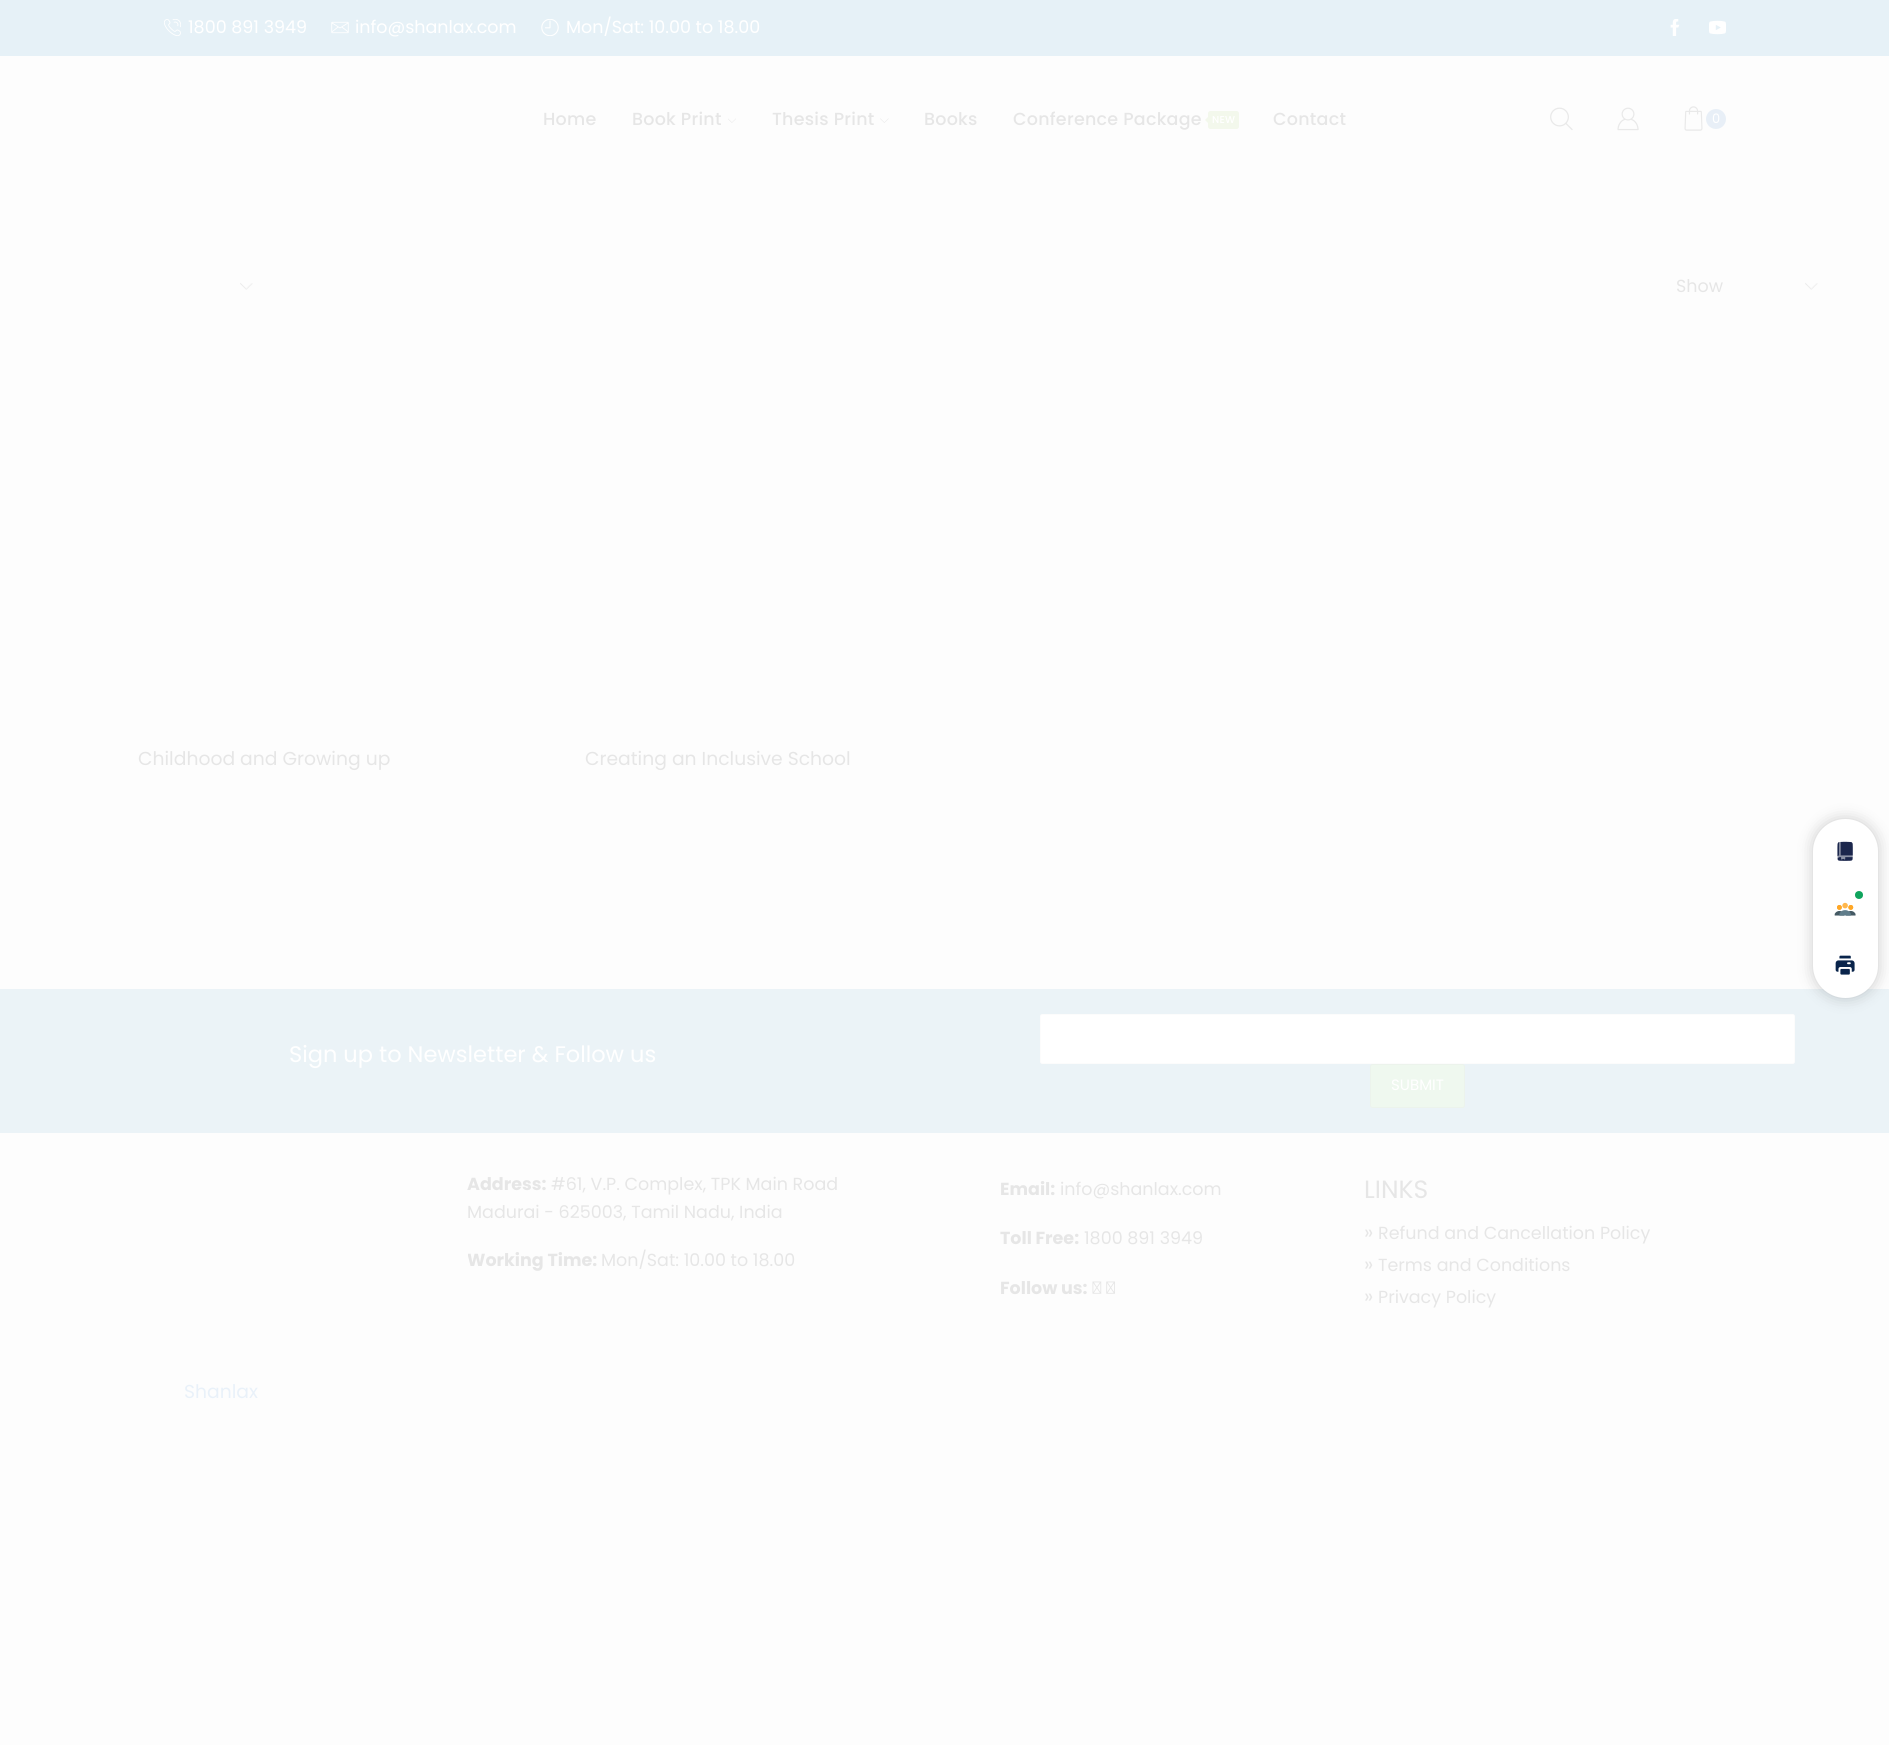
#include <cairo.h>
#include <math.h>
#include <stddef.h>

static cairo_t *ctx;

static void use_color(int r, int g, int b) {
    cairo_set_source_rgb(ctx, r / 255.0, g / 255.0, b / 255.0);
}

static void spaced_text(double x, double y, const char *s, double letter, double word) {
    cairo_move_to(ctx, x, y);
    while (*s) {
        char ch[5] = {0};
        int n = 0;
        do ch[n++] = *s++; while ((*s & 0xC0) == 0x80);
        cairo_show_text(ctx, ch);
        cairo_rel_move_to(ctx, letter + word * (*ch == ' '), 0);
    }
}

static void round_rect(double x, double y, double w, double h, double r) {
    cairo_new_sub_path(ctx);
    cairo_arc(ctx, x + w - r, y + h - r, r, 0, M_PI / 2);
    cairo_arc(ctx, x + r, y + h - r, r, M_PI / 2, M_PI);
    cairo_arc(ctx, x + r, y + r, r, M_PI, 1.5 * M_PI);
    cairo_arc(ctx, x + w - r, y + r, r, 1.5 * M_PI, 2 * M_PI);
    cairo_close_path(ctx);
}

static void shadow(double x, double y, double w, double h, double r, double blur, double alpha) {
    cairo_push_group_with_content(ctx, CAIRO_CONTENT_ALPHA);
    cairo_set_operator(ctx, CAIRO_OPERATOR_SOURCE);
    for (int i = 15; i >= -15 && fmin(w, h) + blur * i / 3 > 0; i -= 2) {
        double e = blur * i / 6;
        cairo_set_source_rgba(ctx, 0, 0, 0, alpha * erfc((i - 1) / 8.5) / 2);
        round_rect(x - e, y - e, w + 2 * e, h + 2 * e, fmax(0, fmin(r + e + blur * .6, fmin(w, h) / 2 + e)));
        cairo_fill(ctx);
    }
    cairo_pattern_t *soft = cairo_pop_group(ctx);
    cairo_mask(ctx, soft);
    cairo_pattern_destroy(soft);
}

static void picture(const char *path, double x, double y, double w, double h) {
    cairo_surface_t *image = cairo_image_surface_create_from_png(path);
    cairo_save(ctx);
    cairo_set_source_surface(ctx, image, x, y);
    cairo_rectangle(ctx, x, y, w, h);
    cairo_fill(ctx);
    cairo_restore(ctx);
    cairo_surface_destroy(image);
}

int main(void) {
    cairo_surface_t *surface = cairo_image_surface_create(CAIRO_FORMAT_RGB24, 1889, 1745);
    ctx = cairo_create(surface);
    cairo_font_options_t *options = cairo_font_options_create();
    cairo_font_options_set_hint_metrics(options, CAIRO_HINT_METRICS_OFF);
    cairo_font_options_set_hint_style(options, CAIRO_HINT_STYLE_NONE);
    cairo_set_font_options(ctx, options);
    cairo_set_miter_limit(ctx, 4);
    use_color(253, 253, 253);
    cairo_paint(ctx);
    use_color(230, 241, 247);
    cairo_rectangle(ctx, 0, 0, 1889, 56);
    cairo_fill(ctx);
    picture("img1.png", 164, 19, 17, 17);
    cairo_select_font_face(ctx, "Poppins", CAIRO_FONT_SLANT_NORMAL, CAIRO_FONT_WEIGHT_NORMAL);
    cairo_set_font_size(ctx, 17.5);
    use_color(255, 255, 255);
    cairo_move_to(ctx, 188, 33);
    cairo_show_text(ctx, "1800 891 3949");
    picture("img2.png", 331, 21, 18, 13);
    cairo_move_to(ctx, 355, 33);
    cairo_show_text(ctx, "info@shanlax.com");
    picture("img3.png", 541, 19, 18, 17);
    cairo_move_to(ctx, 566, 33);
    cairo_show_text(ctx, "Mon/Sat: 10.00 to 18.00");
    picture("img4.png", 1670, 19, 10, 17);
    picture("img5.png", 1709, 20, 17, 15);
    cairo_select_font_face(ctx, "Poppins Medium", CAIRO_FONT_SLANT_NORMAL, CAIRO_FONT_WEIGHT_NORMAL);
    use_color(230, 230, 230);
    spaced_text(543, 125, "Home", 0.25, 0);
    spaced_text(632, 125, "Book Print", 0.25, 0);
    picture("img6.png", 728, 118, 8, 5);
    spaced_text(772, 125, "Thesis Print", 0.25, 0);
    picture("img7.png", 880, 118, 9, 5);
    spaced_text(924, 125, "Books", 0.25, 0);
    spaced_text(1013, 125, "Conference Package", 0.25, 0);
    use_color(243, 248, 236);
    round_rect(1208, 111, 31, 18, 2.5);
    cairo_fill(ctx);
    cairo_new_path(ctx);
    cairo_move_to(ctx, 1209, 116);
    cairo_line_to(ctx, 1209, 124);
    cairo_line_to(ctx, 1205, 120);
    cairo_close_path(ctx);
    cairo_fill(ctx);
    cairo_set_font_size(ctx, 10);
    use_color(255, 255, 255);
    spaced_text(1212, 123, "NEW", 0.25, 0);
    cairo_set_font_size(ctx, 17.5);
    use_color(230, 230, 230);
    spaced_text(1273, 125, "Contact", 0.25, 0);
    picture("img8.png", 1550, 107, 23, 24);
    picture("img9.png", 1617, 107, 22, 24);
    picture("img10.png", 1684, 106, 19, 25);
    use_color(232, 239, 247);
    cairo_arc(ctx, 1716, 119, 10, 0, 2 * M_PI);
    cairo_fill(ctx);
    cairo_select_font_face(ctx, "Poppins", CAIRO_FONT_SLANT_NORMAL, CAIRO_FONT_WEIGHT_NORMAL);
    cairo_set_font_size(ctx, 13);
    use_color(255, 255, 255);
    cairo_move_to(ctx, 1712, 123);
    cairo_show_text(ctx, "0");
    picture("img11.png", 240, 282, 13, 8);
    cairo_set_font_size(ctx, 17.5);
    use_color(230, 230, 230);
    cairo_move_to(ctx, 1676, 292);
    cairo_show_text(ctx, "Show");
    picture("img11.png", 1805, 282, 13, 8);
    cairo_set_font_size(ctx, 18.75);
    cairo_move_to(ctx, 138, 765);
    cairo_show_text(ctx, "Childhood and Growing up");
    cairo_move_to(ctx, 585, 765);
    cairo_show_text(ctx, "Creating an Inclusive School");
    use_color(235, 243, 247);
    cairo_rectangle(ctx, 0, 989, 1889, 144);
    cairo_fill(ctx);
    cairo_set_font_size(ctx, 22.5);
    use_color(255, 255, 255);
    cairo_move_to(ctx, 289, 1062);
    cairo_show_text(ctx, "Sign up to Newsletter & Follow us");
    round_rect(1040.5, 1014.5, 754, 49, 2);
    cairo_fill_preserve(ctx);
    use_color(252, 252, 252);
    cairo_set_line_width(ctx, 1);
    cairo_stroke(ctx);
    use_color(239, 248, 239);
    round_rect(1370.5, 1064.5, 94, 43, 2);
    cairo_fill_preserve(ctx);
    use_color(236, 243, 236);
    cairo_stroke(ctx);
    cairo_set_font_size(ctx, 15);
    use_color(255, 255, 255);
    cairo_move_to(ctx, 1391, 1090);
    cairo_show_text(ctx, "SUBMIT");
    cairo_select_font_face(ctx, "Poppins", CAIRO_FONT_SLANT_NORMAL, CAIRO_FONT_WEIGHT_BOLD);
    cairo_set_font_size(ctx, 17.5);
    use_color(230, 230, 230);
    cairo_move_to(ctx, 467, 1190);
    cairo_show_text(ctx, "Address:");
    cairo_select_font_face(ctx, "Poppins", CAIRO_FONT_SLANT_NORMAL, CAIRO_FONT_WEIGHT_NORMAL);
    cairo_move_to(ctx, 551, 1190);
    cairo_show_text(ctx, "#61, V.P. Complex, TPK Main Road");
    cairo_move_to(ctx, 467, 1218);
    cairo_show_text(ctx, "Madurai - 625003, Tamil Nadu, India");
    cairo_save(ctx);
    cairo_rectangle(ctx, 468, 1245, 458, 29);
    cairo_clip(ctx);
    cairo_select_font_face(ctx, "Poppins", CAIRO_FONT_SLANT_NORMAL, CAIRO_FONT_WEIGHT_BOLD);
    cairo_move_to(ctx, 467, 1266);
    cairo_show_text(ctx, "Working Time:");
    cairo_restore(ctx);
    cairo_move_to(ctx, 601, 1266);
    cairo_show_text(ctx, "Mon/Sat: 10.00 to 18.00");
    cairo_select_font_face(ctx, "Poppins", CAIRO_FONT_SLANT_NORMAL, CAIRO_FONT_WEIGHT_BOLD);
    cairo_move_to(ctx, 1000, 1195);
    cairo_show_text(ctx, "Email:");
    cairo_select_font_face(ctx, "Poppins", CAIRO_FONT_SLANT_NORMAL, CAIRO_FONT_WEIGHT_NORMAL);
    cairo_move_to(ctx, 1060, 1195);
    cairo_show_text(ctx, "info@shanlax.com");
    cairo_select_font_face(ctx, "Poppins", CAIRO_FONT_SLANT_NORMAL, CAIRO_FONT_WEIGHT_BOLD);
    cairo_move_to(ctx, 1000, 1244);
    cairo_show_text(ctx, "Toll Free:");
    cairo_select_font_face(ctx, "Poppins", CAIRO_FONT_SLANT_NORMAL, CAIRO_FONT_WEIGHT_NORMAL);
    cairo_move_to(ctx, 1084, 1244);
    cairo_show_text(ctx, "1800 891 3949");
    cairo_select_font_face(ctx, "Poppins", CAIRO_FONT_SLANT_NORMAL, CAIRO_FONT_WEIGHT_BOLD);
    cairo_move_to(ctx, 1000, 1294);
    cairo_show_text(ctx, "Follow us:");
    picture("img12.png", 1092, 1281, 10, 13);
    picture("img13.png", 1106, 1281, 9, 13);
    cairo_select_font_face(ctx, "Poppins", CAIRO_FONT_SLANT_NORMAL, CAIRO_FONT_WEIGHT_NORMAL);
    cairo_set_font_size(ctx, 25);
    cairo_move_to(ctx, 1364, 1198);
    cairo_show_text(ctx, "LINKS");
    cairo_set_font_size(ctx, 20);
    cairo_move_to(ctx, 1364, 1239);
    cairo_show_text(ctx, "»");
    cairo_set_font_size(ctx, 17.5);
    cairo_move_to(ctx, 1378, 1239);
    cairo_show_text(ctx, "Refund and Cancellation Policy");
    cairo_set_font_size(ctx, 20);
    cairo_move_to(ctx, 1364, 1271);
    cairo_show_text(ctx, "»");
    cairo_set_font_size(ctx, 17.5);
    cairo_move_to(ctx, 1378, 1271);
    cairo_show_text(ctx, "Terms and Conditions");
    cairo_set_font_size(ctx, 20);
    cairo_move_to(ctx, 1364, 1303);
    cairo_show_text(ctx, "»");
    cairo_set_font_size(ctx, 17.5);
    cairo_move_to(ctx, 1378, 1303);
    cairo_show_text(ctx, "Privacy Policy");
    cairo_set_font_size(ctx, 18.75);
    use_color(233, 241, 249);
    cairo_move_to(ctx, 184, 1398);
    cairo_show_text(ctx, "Shanlax");
    use_color(0, 0, 0);
    shadow(1813, 819, 65, 179, 32.5, 7.5, 0.2);
    use_color(255, 255, 255);
    round_rect(1813, 819, 65, 179, 32.5);
    cairo_fill(ctx);
    picture("img14.png", 1837, 841, 16, 20);
    use_color(16, 164, 93);
    cairo_arc(ctx, 1859, 895, 4, 0, 2 * M_PI);
    cairo_fill(ctx);
    picture("img15.png", 1834, 902, 22, 14);
    picture("img16.png", 1835, 955, 20, 20);
    cairo_surface_write_to_png(surface, "result.png");
    cairo_font_options_destroy(options);
    cairo_destroy(ctx);
    cairo_surface_destroy(surface);
    return 0;
}
